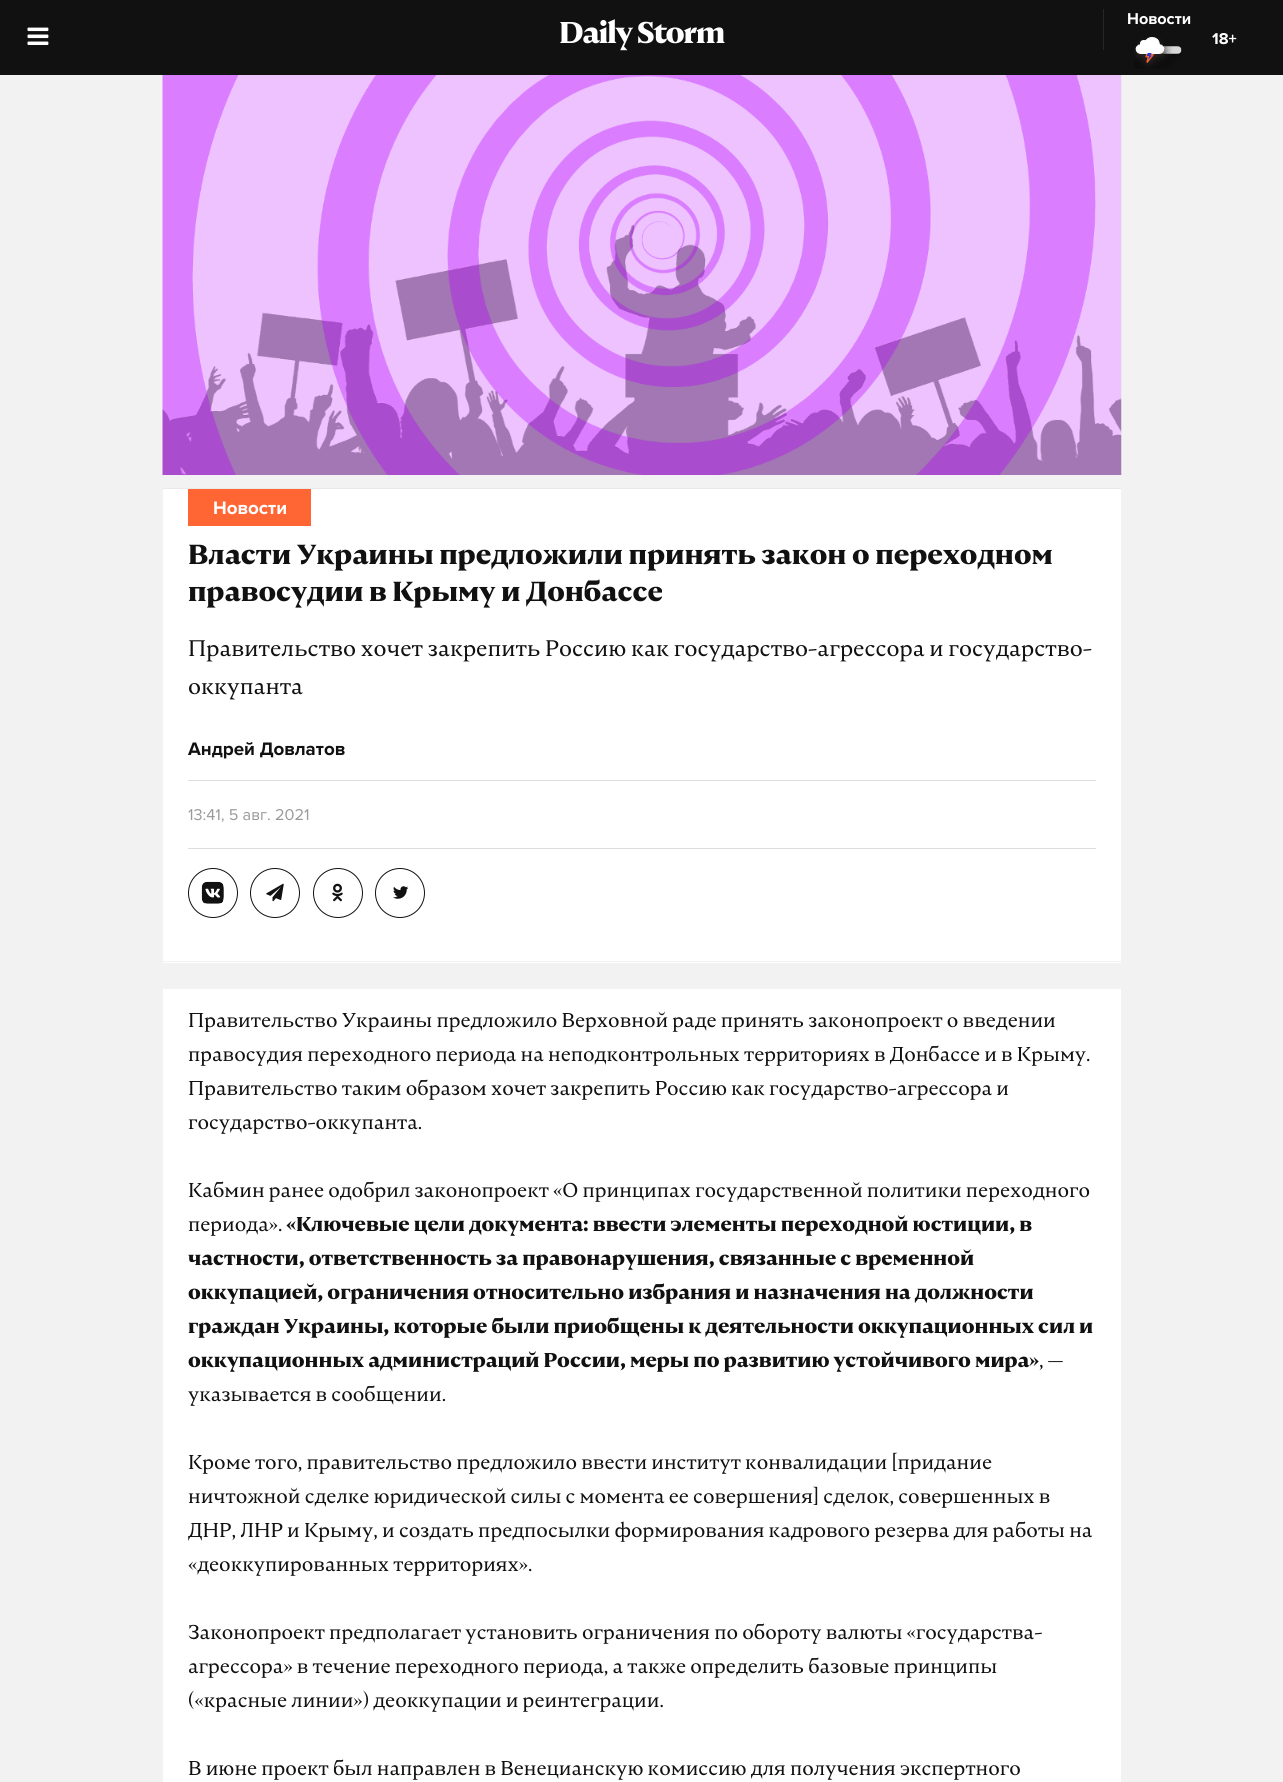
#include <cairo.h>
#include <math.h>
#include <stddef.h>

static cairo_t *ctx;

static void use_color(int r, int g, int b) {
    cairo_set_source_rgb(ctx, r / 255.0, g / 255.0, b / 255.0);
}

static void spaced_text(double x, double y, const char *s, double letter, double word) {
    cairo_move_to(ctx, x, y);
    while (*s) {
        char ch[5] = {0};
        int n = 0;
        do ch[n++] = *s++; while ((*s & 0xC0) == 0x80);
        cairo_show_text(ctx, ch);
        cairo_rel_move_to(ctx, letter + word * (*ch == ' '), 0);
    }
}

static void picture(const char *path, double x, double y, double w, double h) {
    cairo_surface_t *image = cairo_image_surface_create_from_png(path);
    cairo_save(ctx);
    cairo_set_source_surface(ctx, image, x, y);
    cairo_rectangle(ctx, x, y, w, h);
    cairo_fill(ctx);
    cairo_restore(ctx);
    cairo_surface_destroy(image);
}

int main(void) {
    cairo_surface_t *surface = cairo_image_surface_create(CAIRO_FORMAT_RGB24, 1283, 1782);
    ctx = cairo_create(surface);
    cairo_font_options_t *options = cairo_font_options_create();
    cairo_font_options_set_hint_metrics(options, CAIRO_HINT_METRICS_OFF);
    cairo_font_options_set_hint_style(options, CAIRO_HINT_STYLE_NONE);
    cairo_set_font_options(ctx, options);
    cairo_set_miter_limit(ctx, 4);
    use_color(242, 242, 242);
    cairo_paint(ctx);
    use_color(17, 17, 17);
    cairo_rectangle(ctx, 0, 0, 1283, 75);
    cairo_fill(ctx);
    picture("img1.png", 27, 27, 22, 18);
    cairo_select_font_face(ctx, "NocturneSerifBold", CAIRO_FONT_SLANT_NORMAL, CAIRO_FONT_WEIGHT_NORMAL);
    cairo_set_font_size(ctx, 30);
    use_color(255, 255, 255);
    spaced_text(559, 43, "Daily Storm", -1.4, 0);
    use_color(39, 39, 39);
    cairo_rectangle(ctx, 1103, 9, 1, 41);
    cairo_fill(ctx);
    cairo_select_font_face(ctx, "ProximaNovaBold", CAIRO_FONT_SLANT_NORMAL, CAIRO_FONT_WEIGHT_NORMAL);
    cairo_set_font_size(ctx, 16.25);
    use_color(255, 255, 255);
    cairo_move_to(ctx, 1127, 24);
    cairo_show_text(ctx, "Новости");
    picture("img2.png", 1134, 37, 48, 32);
    cairo_move_to(ctx, 1212, 44);
    cairo_show_text(ctx, "18+");
    picture("img3.png", 162, 75, 960, 400);
    use_color(233, 233, 233);
    cairo_rectangle(ctx, 163, 488, 958, 1);
    cairo_fill(ctx);
    use_color(255, 255, 255);
    cairo_rectangle(ctx, 163, 489, 958, 474);
    cairo_fill(ctx);
    use_color(255, 102, 51);
    cairo_rectangle(ctx, 188, 489, 123, 37);
    cairo_fill(ctx);
    cairo_set_font_size(ctx, 18.75);
    use_color(255, 255, 255);
    cairo_move_to(ctx, 213, 514);
    cairo_show_text(ctx, "Новости");
    cairo_select_font_face(ctx, "NocturneSerifBold", CAIRO_FONT_SLANT_NORMAL, CAIRO_FONT_WEIGHT_NORMAL);
    cairo_set_font_size(ctx, 27.5);
    use_color(17, 17, 17);
    cairo_move_to(ctx, 188, 564);
    cairo_show_text(ctx, "Власти Украины предложили принять закон о переходном");
    cairo_move_to(ctx, 188, 601);
    cairo_show_text(ctx, "правосудии в Крыму и Донбассе");
    cairo_select_font_face(ctx, "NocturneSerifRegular", CAIRO_FONT_SLANT_NORMAL, CAIRO_FONT_WEIGHT_NORMAL);
    cairo_set_font_size(ctx, 22.5);
    cairo_move_to(ctx, 188, 656);
    cairo_show_text(ctx, "Правительство хочет закрепить Россию как государство-агрессора и государство-");
    cairo_move_to(ctx, 188, 694);
    cairo_show_text(ctx, "оккупанта");
    cairo_select_font_face(ctx, "ProximaNovaBold", CAIRO_FONT_SLANT_NORMAL, CAIRO_FONT_WEIGHT_NORMAL);
    cairo_set_font_size(ctx, 18.75);
    cairo_move_to(ctx, 188, 755);
    cairo_show_text(ctx, "Андрей Довлатов");
    use_color(221, 221, 221);
    cairo_rectangle(ctx, 188, 780, 908, 1);
    cairo_fill(ctx);
    cairo_select_font_face(ctx, "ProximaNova", CAIRO_FONT_SLANT_NORMAL, CAIRO_FONT_WEIGHT_NORMAL);
    cairo_set_font_size(ctx, 16.25);
    use_color(153, 153, 153);
    cairo_move_to(ctx, 188, 820);
    cairo_show_text(ctx, "13:41, 5 авг. 2021");
    use_color(221, 221, 221);
    cairo_rectangle(ctx, 188, 848, 908, 1);
    cairo_fill(ctx);
    cairo_arc(ctx, 213, 893, 24.5, 0, 2 * M_PI);
    use_color(17, 17, 17);
    cairo_set_line_width(ctx, 1);
    cairo_stroke(ctx);
    picture("img4.png", 201, 881, 23, 23);
    cairo_arc(ctx, 275, 893, 24.5, 0, 2 * M_PI);
    cairo_stroke(ctx);
    picture("img5.png", 266, 883, 18, 19);
    cairo_arc(ctx, 338, 893, 24.5, 0, 2 * M_PI);
    cairo_stroke(ctx);
    picture("img6.png", 332, 883, 11, 19);
    cairo_arc(ctx, 400, 893, 24.5, 0, 2 * M_PI);
    cairo_stroke(ctx);
    picture("img7.png", 393, 886, 16, 13);
    use_color(242, 242, 242);
    cairo_rectangle(ctx, 163, 961, 958, 1);
    cairo_fill(ctx);
    use_color(255, 255, 255);
    cairo_rectangle(ctx, 163, 989, 958, 793);
    cairo_fill(ctx);
    cairo_select_font_face(ctx, "NocturneSerifRegular", CAIRO_FONT_SLANT_NORMAL, CAIRO_FONT_WEIGHT_NORMAL);
    cairo_set_font_size(ctx, 20);
    use_color(17, 17, 17);
    cairo_move_to(ctx, 188, 1027);
    cairo_show_text(ctx, "Правительство Украины предложило Верховной раде принять законопроект о введении");
    cairo_move_to(ctx, 188, 1061);
    cairo_show_text(ctx, "правосудия переходного периода на неподконтрольных территориях в Донбассе и в Крыму.");
    cairo_move_to(ctx, 188, 1095);
    cairo_show_text(ctx, "Правительство таким образом хочет закрепить Россию как государство-агрессора и");
    cairo_move_to(ctx, 188, 1129);
    cairo_show_text(ctx, "государство-оккупанта.");
    cairo_move_to(ctx, 188, 1197);
    cairo_show_text(ctx, "Кабмин ранее одобрил законопроект «О принципах государственной политики переходного");
    cairo_move_to(ctx, 188, 1231);
    cairo_show_text(ctx, "периода».");
    cairo_select_font_face(ctx, "NocturneSerifBold", CAIRO_FONT_SLANT_NORMAL, CAIRO_FONT_WEIGHT_NORMAL);
    cairo_move_to(ctx, 286, 1231);
    cairo_show_text(ctx, "«Ключевые цели документа: ввести элементы переходной юстиции, в");
    cairo_move_to(ctx, 188, 1265);
    cairo_show_text(ctx, "частности, ответственность за правонарушения, связанные с временной");
    cairo_move_to(ctx, 188, 1299);
    cairo_show_text(ctx, "оккупацией, ограничения относительно избрания и назначения на должности");
    cairo_move_to(ctx, 188, 1333);
    cairo_show_text(ctx, "граждан Украины, которые были приобщены к деятельности оккупационных сил и");
    cairo_move_to(ctx, 188, 1367);
    cairo_show_text(ctx, "оккупационных администраций России, меры по развитию устойчивого мира»");
    cairo_select_font_face(ctx, "NocturneSerifRegular", CAIRO_FONT_SLANT_NORMAL, CAIRO_FONT_WEIGHT_NORMAL);
    cairo_move_to(ctx, 1039, 1367);
    cairo_show_text(ctx, ", —");
    cairo_move_to(ctx, 188, 1401);
    cairo_show_text(ctx, "указывается в сообщении.");
    cairo_move_to(ctx, 188, 1469);
    cairo_show_text(ctx, "Кроме того, правительство предложило ввести институт конвалидации [придание");
    cairo_move_to(ctx, 188, 1503);
    cairo_show_text(ctx, "ничтожной сделке юридической силы с момента ее совершения] сделок, совершенных в");
    cairo_save(ctx);
    cairo_rectangle(ctx, 188, 1006, 908, 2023);
    cairo_clip(ctx);
    cairo_move_to(ctx, 188, 1537);
    cairo_show_text(ctx, "ДНР, ЛНР и Крыму, и создать предпосылки формирования кадрового резерва для работы на");
    cairo_restore(ctx);
    cairo_move_to(ctx, 188, 1571);
    cairo_show_text(ctx, "«деоккупированных территориях».");
    cairo_move_to(ctx, 188, 1639);
    cairo_show_text(ctx, "Законопроект предполагает установить ограничения по обороту валюты «государства-");
    cairo_move_to(ctx, 188, 1673);
    cairo_show_text(ctx, "агрессора» в течение переходного периода, а также определить базовые принципы");
    cairo_move_to(ctx, 188, 1707);
    cairo_show_text(ctx, "(«красные линии») деоккупации и реинтеграции.");
    cairo_move_to(ctx, 188, 1775);
    cairo_show_text(ctx, "В июне проект был направлен в Венецианскую комиссию для получения экспертного");
    cairo_surface_write_to_png(surface, "result.png");
    cairo_font_options_destroy(options);
    cairo_destroy(ctx);
    cairo_surface_destroy(surface);
    return 0;
}
